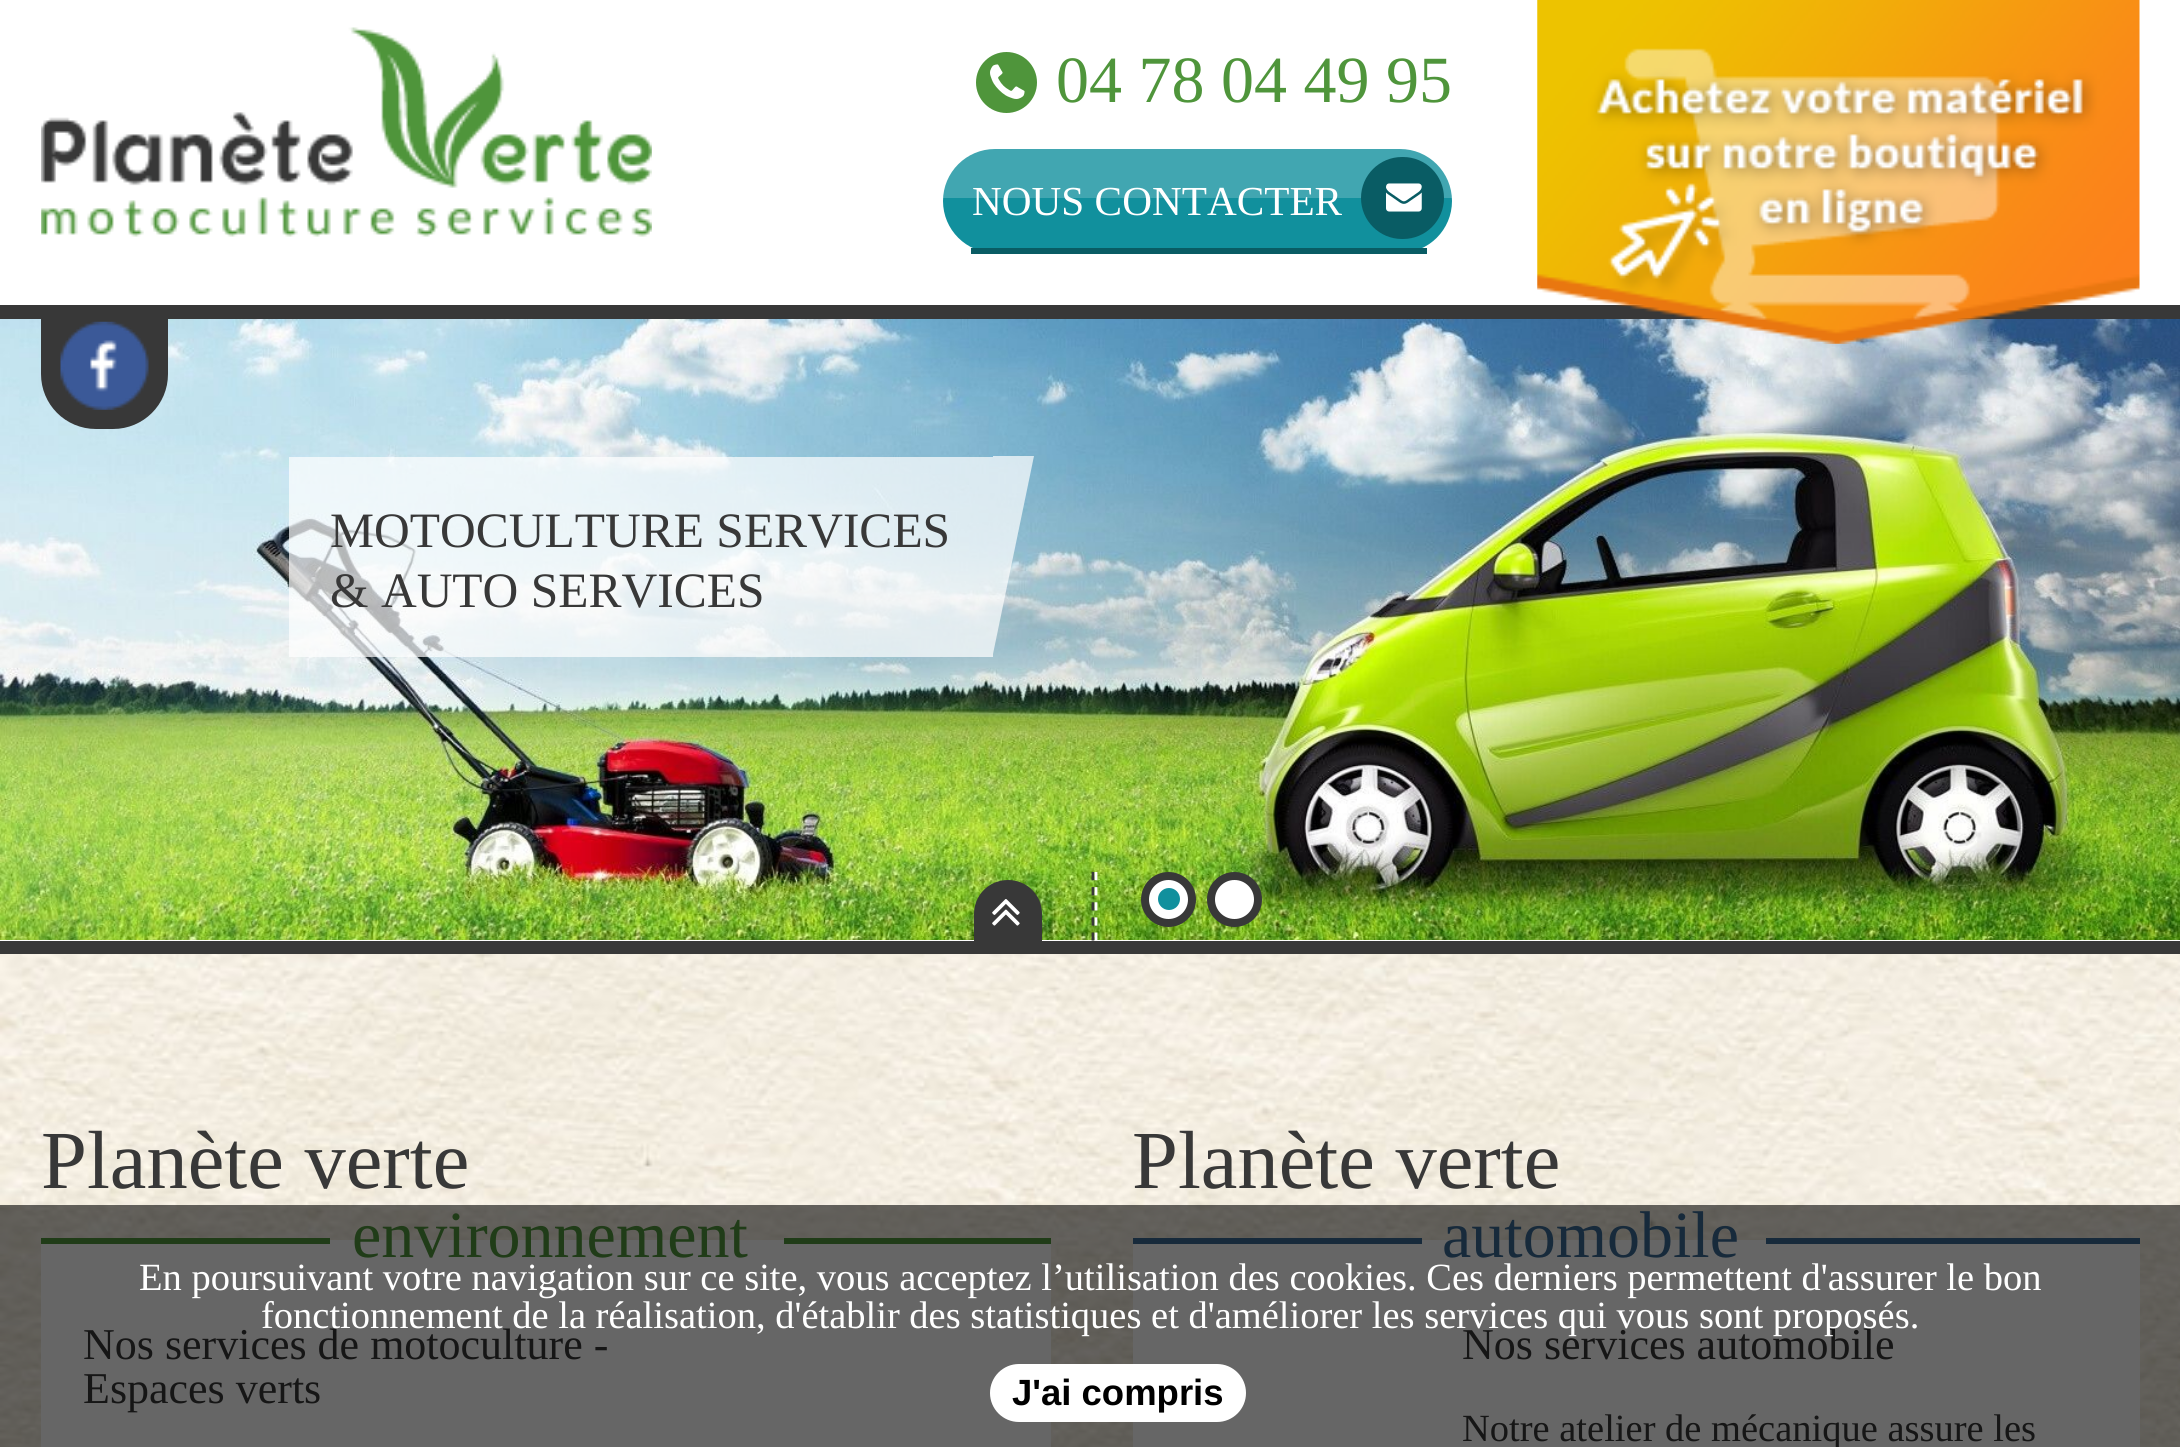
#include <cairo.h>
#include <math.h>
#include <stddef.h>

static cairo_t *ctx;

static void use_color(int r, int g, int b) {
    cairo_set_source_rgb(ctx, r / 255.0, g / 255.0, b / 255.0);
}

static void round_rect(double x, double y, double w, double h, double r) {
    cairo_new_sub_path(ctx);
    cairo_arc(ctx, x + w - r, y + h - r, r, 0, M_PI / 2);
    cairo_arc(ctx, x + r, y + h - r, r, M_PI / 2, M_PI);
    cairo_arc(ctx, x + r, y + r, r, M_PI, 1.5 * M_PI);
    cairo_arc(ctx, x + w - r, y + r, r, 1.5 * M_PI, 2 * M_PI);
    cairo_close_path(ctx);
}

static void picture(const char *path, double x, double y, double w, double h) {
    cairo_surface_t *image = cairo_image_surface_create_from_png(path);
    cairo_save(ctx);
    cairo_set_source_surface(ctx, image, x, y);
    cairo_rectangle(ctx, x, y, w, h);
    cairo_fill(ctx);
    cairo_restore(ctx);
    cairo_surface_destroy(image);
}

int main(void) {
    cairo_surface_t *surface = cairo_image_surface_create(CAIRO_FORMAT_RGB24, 2180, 1447);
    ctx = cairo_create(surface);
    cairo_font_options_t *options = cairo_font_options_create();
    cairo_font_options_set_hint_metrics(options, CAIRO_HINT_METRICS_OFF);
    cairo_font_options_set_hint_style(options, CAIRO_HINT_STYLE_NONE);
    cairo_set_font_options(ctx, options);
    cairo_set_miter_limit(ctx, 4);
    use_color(255, 255, 255);
    cairo_paint(ctx);
    picture("img1.png", 0, 954, 2180, 493);
    use_color(56, 56, 56);
    cairo_rectangle(ctx, 0, 305, 2180, 14);
    cairo_fill(ctx);
    picture("img2.png", 41, 27, 611, 210);
    use_color(79, 149, 59);
    cairo_arc(ctx, 1006.5, 82.5, 30.5, 0, 2 * M_PI);
    cairo_fill(ctx);
    picture("img3.png", 990, 64, 35, 35);
    cairo_select_font_face(ctx, "Liberation Serif", CAIRO_FONT_SLANT_NORMAL, CAIRO_FONT_WEIGHT_NORMAL);
    cairo_set_font_size(ctx, 66);
    cairo_move_to(ctx, 1056, 102);
    cairo_show_text(ctx, "04 78 04 49 95");
    picture("img7.png", 0, 319, 2180, 621);
    picture("img4.png", 1537, 0, 603, 344);
    use_color(17, 144, 157);
    round_rect(943, 149, 509, 104, 52);
    cairo_fill(ctx);
    use_color(9, 92, 100);
    cairo_rectangle(ctx, 971, 248, 456, 6);
    cairo_fill(ctx);
    cairo_set_font_size(ctx, 41.25);
    use_color(255, 255, 255);
    cairo_move_to(ctx, 972, 215);
    cairo_show_text(ctx, "NOUS CONTACTER");
    cairo_set_source_rgba(ctx, 1, 1, 1, 0.2);
    cairo_rectangle(ctx, 943, 149, 509, 49);
    cairo_fill(ctx);
    use_color(9, 92, 100);
    round_rect(1361, 157, 83, 82, 41);
    cairo_fill(ctx);
    picture("img5.png", 1386, 183, 36, 29);
    use_color(56, 56, 56);
    cairo_new_path(ctx);
    cairo_move_to(ctx, 41, 316);
    cairo_line_to(ctx, 168, 316);
    cairo_line_to(ctx, 168, 374);
    cairo_curve_to(ctx, 168, 404.5, 143.5, 429, 113, 429);
    cairo_line_to(ctx, 96, 429);
    cairo_curve_to(ctx, 65.5, 429, 41, 404.5, 41, 374);
    cairo_close_path(ctx);
    cairo_fill(ctx);
    picture("img6.png", 60, 321, 89, 89);
    cairo_rectangle(ctx, 0, 941, 2180, 13);
    cairo_fill(ctx);
    cairo_set_source_rgba(ctx, 1, 1, 1, 0.7);
    cairo_rectangle(ctx, 289, 457, 704, 200);
    cairo_fill(ctx);
    cairo_set_font_size(ctx, 49.5);
    use_color(56, 56, 56);
    cairo_move_to(ctx, 330, 547);
    cairo_show_text(ctx, "MOTOCULTURE SERVICES");
    cairo_move_to(ctx, 330, 607);
    cairo_show_text(ctx, "& AUTO SERVICES");
    cairo_set_source_rgba(ctx, 1, 1, 1, 0.7);
    cairo_new_path(ctx);
    cairo_move_to(ctx, 993, 456);
    cairo_line_to(ctx, 1034, 456);
    cairo_line_to(ctx, 993, 654);
    cairo_close_path(ctx);
    cairo_fill(ctx);
    cairo_new_path(ctx);
    cairo_move_to(ctx, 1093, 872);
    cairo_line_to(ctx, 1093, 940.5);
    use_color(56, 56, 56);
    cairo_set_line_width(ctx, 2.8);
    cairo_set_dash(ctx, (double[]){8.25, 6.88}, 2, 0);
    cairo_stroke(ctx);
    cairo_new_path(ctx);
    cairo_move_to(ctx, 1096, 872);
    cairo_line_to(ctx, 1096, 940.5);
    use_color(255, 255, 255);
    cairo_stroke(ctx);
    cairo_arc(ctx, 1168.5, 899.5, 23.5, 0, 2 * M_PI);
    cairo_fill_preserve(ctx);
    use_color(56, 56, 56);
    cairo_set_line_width(ctx, 8);
    cairo_set_dash(ctx, NULL, 0, 0);
    cairo_stroke(ctx);
    use_color(17, 144, 157);
    cairo_arc(ctx, 1169, 899, 11, 0, 2 * M_PI);
    cairo_fill(ctx);
    use_color(255, 255, 255);
    cairo_arc(ctx, 1234.5, 899.5, 23.5, 0, 2 * M_PI);
    cairo_fill_preserve(ctx);
    use_color(56, 56, 56);
    cairo_stroke(ctx);
    cairo_new_path(ctx);
    cairo_move_to(ctx, 1008, 880);
    cairo_curve_to(ctx, 1027, 880, 1042, 895, 1042, 914);
    cairo_line_to(ctx, 1042, 941);
    cairo_line_to(ctx, 974, 941);
    cairo_line_to(ctx, 974, 914);
    cairo_curve_to(ctx, 974, 895, 989, 880, 1008, 880);
    cairo_close_path(ctx);
    cairo_fill(ctx);
    picture("img8.png", 992, 899, 28, 27);
    cairo_set_font_size(ctx, 82.5);
    cairo_move_to(ctx, 41, 1188);
    cairo_show_text(ctx, "Planète verte");
    use_color(255, 255, 255);
    cairo_rectangle(ctx, 41, 1240, 1010, 207);
    cairo_fill(ctx);
    use_color(79, 149, 59);
    cairo_rectangle(ctx, 41, 1238, 289, 6);
    cairo_fill(ctx);
    cairo_set_font_size(ctx, 66);
    cairo_move_to(ctx, 352, 1257);
    cairo_show_text(ctx, "environnement");
    cairo_rectangle(ctx, 784, 1238, 267, 6);
    cairo_fill(ctx);
    cairo_set_font_size(ctx, 44);
    use_color(56, 56, 56);
    cairo_move_to(ctx, 83, 1359);
    cairo_show_text(ctx, "Nos services de motoculture -");
    cairo_move_to(ctx, 83, 1403);
    cairo_show_text(ctx, "Espaces verts");
    cairo_set_font_size(ctx, 82.5);
    cairo_move_to(ctx, 1132, 1188);
    cairo_show_text(ctx, "Planète verte");
    use_color(255, 255, 255);
    cairo_rectangle(ctx, 1133, 1240, 1007, 207);
    cairo_fill(ctx);
    use_color(58, 105, 147);
    cairo_rectangle(ctx, 1133, 1238, 289, 6);
    cairo_fill(ctx);
    cairo_set_font_size(ctx, 66);
    cairo_move_to(ctx, 1442, 1257);
    cairo_show_text(ctx, "automobile");
    cairo_rectangle(ctx, 1766, 1238, 374, 6);
    cairo_fill(ctx);
    cairo_set_font_size(ctx, 44);
    use_color(56, 56, 56);
    cairo_move_to(ctx, 1462, 1359);
    cairo_show_text(ctx, "Nos services automobile");
    cairo_set_font_size(ctx, 38.5);
    cairo_move_to(ctx, 1462, 1441);
    cairo_show_text(ctx, "Notre atelier de mécanique assure les");
    cairo_set_source_rgba(ctx, 0, 0, 0, 0.6);
    cairo_rectangle(ctx, 0, 1205, 2180, 242);
    cairo_fill(ctx);
    use_color(255, 255, 255);
    cairo_move_to(ctx, 139, 1290);
    cairo_show_text(ctx, "En poursuivant votre navigation sur ce site, vous acceptez l’utilisation des cookies. Ces derniers permettent d'assurer le bon");
    cairo_move_to(ctx, 261, 1328);
    cairo_show_text(ctx, "fonctionnement de la réalisation, d'établir des statistiques et d'améliorer les services qui vous sont proposés.");
    round_rect(990, 1364, 256, 58, 29);
    cairo_fill(ctx);
    cairo_select_font_face(ctx, "Liberation Sans", CAIRO_FONT_SLANT_NORMAL, CAIRO_FONT_WEIGHT_BOLD);
    cairo_set_font_size(ctx, 36.5);
    use_color(0, 0, 0);
    cairo_move_to(ctx, 1012, 1405);
    cairo_show_text(ctx, "J'ai compris");
    cairo_surface_write_to_png(surface, "result.png");
    cairo_font_options_destroy(options);
    cairo_destroy(ctx);
    cairo_surface_destroy(surface);
    return 0;
}
